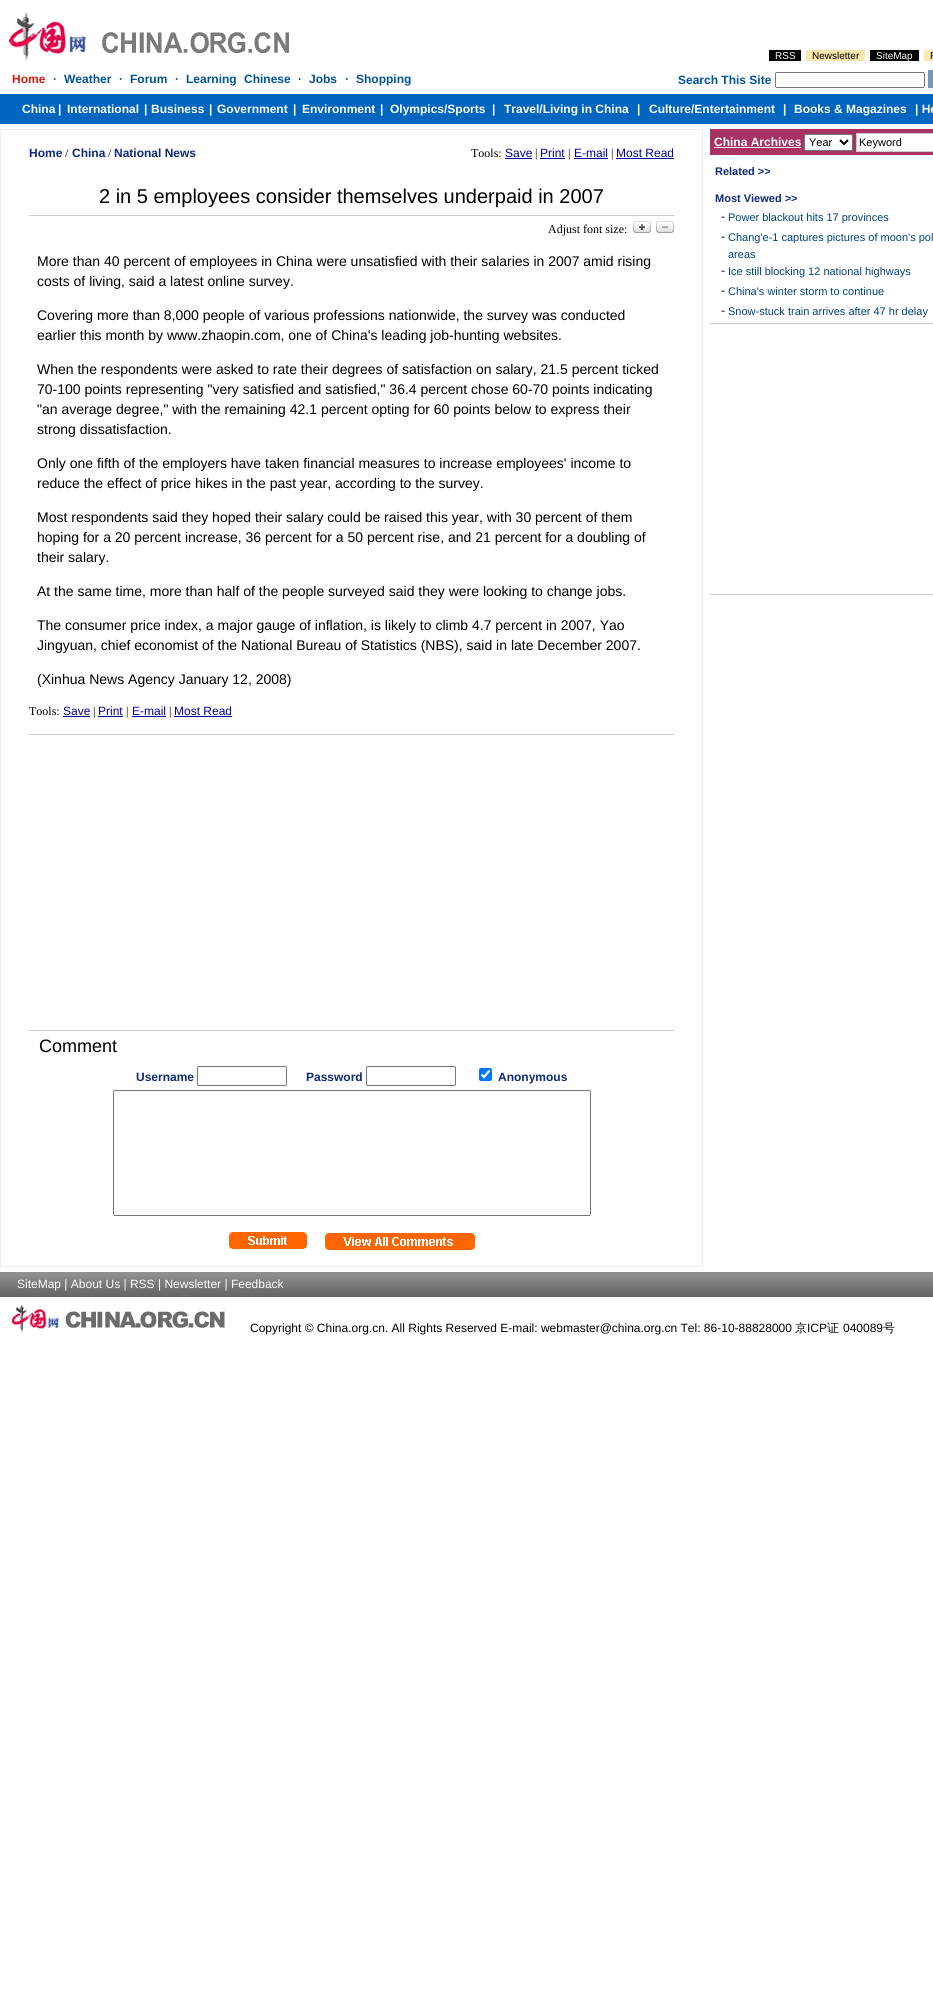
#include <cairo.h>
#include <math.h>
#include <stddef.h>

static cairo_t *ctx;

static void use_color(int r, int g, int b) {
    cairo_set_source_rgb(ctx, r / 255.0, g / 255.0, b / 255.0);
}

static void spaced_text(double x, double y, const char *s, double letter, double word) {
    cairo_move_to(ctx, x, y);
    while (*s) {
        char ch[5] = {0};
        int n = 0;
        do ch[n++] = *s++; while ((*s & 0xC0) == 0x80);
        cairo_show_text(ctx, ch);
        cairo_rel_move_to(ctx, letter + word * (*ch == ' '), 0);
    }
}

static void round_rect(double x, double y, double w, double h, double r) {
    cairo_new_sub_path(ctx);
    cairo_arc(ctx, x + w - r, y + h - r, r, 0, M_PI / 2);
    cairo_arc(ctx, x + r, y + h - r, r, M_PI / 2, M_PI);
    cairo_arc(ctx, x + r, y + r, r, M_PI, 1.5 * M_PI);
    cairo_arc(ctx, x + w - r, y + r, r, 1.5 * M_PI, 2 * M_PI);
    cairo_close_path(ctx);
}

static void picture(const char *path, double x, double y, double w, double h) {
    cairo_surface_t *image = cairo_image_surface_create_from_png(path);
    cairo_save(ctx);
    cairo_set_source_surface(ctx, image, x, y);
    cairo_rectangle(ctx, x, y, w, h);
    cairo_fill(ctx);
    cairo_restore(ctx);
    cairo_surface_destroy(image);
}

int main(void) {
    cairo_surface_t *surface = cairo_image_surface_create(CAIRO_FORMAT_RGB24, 933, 1999);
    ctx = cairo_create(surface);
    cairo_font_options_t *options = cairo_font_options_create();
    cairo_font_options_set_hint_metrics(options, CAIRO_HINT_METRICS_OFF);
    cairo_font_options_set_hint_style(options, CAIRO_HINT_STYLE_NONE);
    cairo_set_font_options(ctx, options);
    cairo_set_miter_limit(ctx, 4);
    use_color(255, 255, 255);
    cairo_paint(ctx);
    picture("img1.png", 9, 13, 280, 48);
    use_color(0, 0, 0);
    cairo_rectangle(ctx, 769, 50, 32, 11);
    cairo_fill(ctx);
    cairo_select_font_face(ctx, "Liberation Sans", CAIRO_FONT_SLANT_NORMAL, CAIRO_FONT_WEIGHT_NORMAL);
    cairo_set_font_size(ctx, 10);
    use_color(255, 255, 255);
    cairo_move_to(ctx, 775, 59);
    cairo_show_text(ctx, "RSS");
    use_color(252, 231, 175);
    cairo_rectangle(ctx, 806, 50, 59, 11);
    cairo_fill(ctx);
    use_color(0, 0, 0);
    cairo_move_to(ctx, 812, 59);
    cairo_show_text(ctx, "Newsletter");
    cairo_rectangle(ctx, 870, 50, 49, 11);
    cairo_fill(ctx);
    use_color(255, 255, 255);
    cairo_move_to(ctx, 876, 59);
    cairo_show_text(ctx, "SiteMap");
    use_color(252, 231, 175);
    cairo_rectangle(ctx, 924, 50, 9, 11);
    cairo_fill(ctx);
    use_color(0, 0, 0);
    cairo_move_to(ctx, 930, 59);
    cairo_show_text(ctx, "F");
    cairo_select_font_face(ctx, "Liberation Sans", CAIRO_FONT_SLANT_NORMAL, CAIRO_FONT_WEIGHT_BOLD);
    cairo_set_font_size(ctx, 12);
    use_color(207, 29, 16);
    cairo_move_to(ctx, 12, 83);
    cairo_show_text(ctx, "Home");
    use_color(0, 82, 155);
    cairo_move_to(ctx, 53, 83);
    cairo_show_text(ctx, "·");
    cairo_move_to(ctx, 64, 83);
    cairo_show_text(ctx, "Weather");
    cairo_move_to(ctx, 119, 83);
    cairo_show_text(ctx, "·");
    cairo_move_to(ctx, 130, 83);
    cairo_show_text(ctx, "Forum");
    cairo_move_to(ctx, 175, 83);
    cairo_show_text(ctx, "·");
    spaced_text(186, 83, "Learning Chinese", 0, 4);
    cairo_move_to(ctx, 298, 83);
    cairo_show_text(ctx, "·");
    cairo_move_to(ctx, 309, 83);
    cairo_show_text(ctx, "Jobs");
    cairo_move_to(ctx, 345, 83);
    cairo_show_text(ctx, "·");
    cairo_move_to(ctx, 356, 83);
    cairo_show_text(ctx, "Shopping");
    cairo_move_to(ctx, 678, 84);
    cairo_show_text(ctx, "Search This Site");
    round_rect(775.5, 72.5, 149, 15, 1.5);
    use_color(118, 118, 118);
    cairo_set_line_width(ctx, 1);
    cairo_stroke(ctx);
    use_color(120, 152, 182);
    cairo_rectangle(ctx, 928, 70, 5, 18);
    cairo_fill(ctx);
    use_color(0, 101, 191);
    cairo_rectangle(ctx, 0, 94, 933, 30);
    cairo_fill(ctx);
    use_color(255, 255, 255);
    cairo_move_to(ctx, 22, 113);
    cairo_show_text(ctx, "China");
    cairo_move_to(ctx, 58, 113);
    cairo_show_text(ctx, "|");
    cairo_move_to(ctx, 67, 113);
    cairo_show_text(ctx, "International");
    cairo_move_to(ctx, 144, 113);
    cairo_show_text(ctx, "|");
    cairo_move_to(ctx, 151, 113);
    cairo_show_text(ctx, "Business");
    cairo_move_to(ctx, 209, 113);
    cairo_show_text(ctx, "|");
    cairo_move_to(ctx, 217, 113);
    cairo_show_text(ctx, "Government");
    cairo_move_to(ctx, 293, 113);
    cairo_show_text(ctx, "|");
    cairo_move_to(ctx, 302, 113);
    cairo_show_text(ctx, "Environment");
    cairo_move_to(ctx, 380, 113);
    cairo_show_text(ctx, "|");
    cairo_move_to(ctx, 390, 113);
    cairo_show_text(ctx, "Olympics/Sports");
    cairo_move_to(ctx, 492, 113);
    cairo_show_text(ctx, "|");
    cairo_move_to(ctx, 504, 113);
    cairo_show_text(ctx, "Travel/Living in China");
    cairo_move_to(ctx, 637, 113);
    cairo_show_text(ctx, "|");
    cairo_move_to(ctx, 649, 113);
    cairo_show_text(ctx, "Culture/Entertainment");
    cairo_move_to(ctx, 783, 113);
    cairo_show_text(ctx, "|");
    cairo_move_to(ctx, 794, 113);
    cairo_show_text(ctx, "Books & Magazines");
    cairo_move_to(ctx, 915, 113);
    cairo_show_text(ctx, "| He");
    cairo_rectangle(ctx, 0.5, 129.5, 702, 1137);
    use_color(238, 238, 230);
    cairo_stroke(ctx);
    use_color(15, 40, 127);
    cairo_move_to(ctx, 29, 157);
    cairo_show_text(ctx, "Home");
    cairo_select_font_face(ctx, "Liberation Serif", CAIRO_FONT_SLANT_NORMAL, CAIRO_FONT_WEIGHT_NORMAL);
    use_color(0, 0, 0);
    cairo_move_to(ctx, 65, 157);
    cairo_show_text(ctx, "/");
    cairo_select_font_face(ctx, "Liberation Sans", CAIRO_FONT_SLANT_NORMAL, CAIRO_FONT_WEIGHT_BOLD);
    use_color(15, 40, 127);
    cairo_move_to(ctx, 72, 157);
    cairo_show_text(ctx, "China");
    cairo_select_font_face(ctx, "Liberation Serif", CAIRO_FONT_SLANT_NORMAL, CAIRO_FONT_WEIGHT_NORMAL);
    use_color(0, 0, 0);
    cairo_move_to(ctx, 108, 157);
    cairo_show_text(ctx, "/");
    cairo_select_font_face(ctx, "Liberation Sans", CAIRO_FONT_SLANT_NORMAL, CAIRO_FONT_WEIGHT_BOLD);
    use_color(15, 40, 127);
    cairo_move_to(ctx, 114, 157);
    cairo_show_text(ctx, "National News");
    cairo_select_font_face(ctx, "Liberation Serif", CAIRO_FONT_SLANT_NORMAL, CAIRO_FONT_WEIGHT_NORMAL);
    use_color(0, 0, 0);
    cairo_move_to(ctx, 471, 157);
    cairo_show_text(ctx, "Tools:");
    cairo_select_font_face(ctx, "Liberation Sans", CAIRO_FONT_SLANT_NORMAL, CAIRO_FONT_WEIGHT_NORMAL);
    use_color(0, 0, 153);
    cairo_move_to(ctx, 505, 157);
    cairo_show_text(ctx, "Save");
    cairo_rectangle(ctx, 505, 158, 27, 1);
    cairo_fill(ctx);
    cairo_select_font_face(ctx, "Liberation Serif", CAIRO_FONT_SLANT_NORMAL, CAIRO_FONT_WEIGHT_NORMAL);
    use_color(0, 0, 0);
    cairo_move_to(ctx, 535, 157);
    cairo_show_text(ctx, "|");
    cairo_select_font_face(ctx, "Liberation Sans", CAIRO_FONT_SLANT_NORMAL, CAIRO_FONT_WEIGHT_NORMAL);
    use_color(0, 0, 153);
    cairo_move_to(ctx, 540, 157);
    cairo_show_text(ctx, "Print");
    cairo_rectangle(ctx, 540, 158, 25, 1);
    cairo_fill(ctx);
    cairo_select_font_face(ctx, "Liberation Serif", CAIRO_FONT_SLANT_NORMAL, CAIRO_FONT_WEIGHT_NORMAL);
    use_color(0, 0, 0);
    cairo_move_to(ctx, 568, 157);
    cairo_show_text(ctx, "|");
    cairo_select_font_face(ctx, "Liberation Sans", CAIRO_FONT_SLANT_NORMAL, CAIRO_FONT_WEIGHT_NORMAL);
    use_color(0, 0, 153);
    cairo_move_to(ctx, 574, 157);
    cairo_show_text(ctx, "E-mail");
    cairo_rectangle(ctx, 574, 158, 34, 1);
    cairo_fill(ctx);
    cairo_select_font_face(ctx, "Liberation Serif", CAIRO_FONT_SLANT_NORMAL, CAIRO_FONT_WEIGHT_NORMAL);
    use_color(0, 0, 0);
    cairo_move_to(ctx, 611, 157);
    cairo_show_text(ctx, "|");
    cairo_select_font_face(ctx, "Liberation Sans", CAIRO_FONT_SLANT_NORMAL, CAIRO_FONT_WEIGHT_NORMAL);
    use_color(0, 0, 153);
    cairo_move_to(ctx, 616, 157);
    cairo_show_text(ctx, "Most Read");
    cairo_rectangle(ctx, 616, 158, 58, 1);
    cairo_fill(ctx);
    cairo_set_font_size(ctx, 20);
    use_color(0, 0, 0);
    cairo_move_to(ctx, 99, 203);
    cairo_show_text(ctx, "2 in 5 employees consider themselves underpaid in 2007");
    use_color(204, 204, 204);
    cairo_rectangle(ctx, 29, 215, 645, 1);
    cairo_fill(ctx);
    cairo_select_font_face(ctx, "Liberation Serif", CAIRO_FONT_SLANT_NORMAL, CAIRO_FONT_WEIGHT_NORMAL);
    cairo_set_font_size(ctx, 12);
    use_color(0, 0, 0);
    cairo_move_to(ctx, 548, 233);
    cairo_show_text(ctx, "Adjust font size:");
    picture("img2.png", 633, 221, 18, 12);
    picture("img3.png", 656, 221, 18, 12);
    cairo_select_font_face(ctx, "Liberation Sans", CAIRO_FONT_SLANT_NORMAL, CAIRO_FONT_WEIGHT_NORMAL);
    cairo_set_font_size(ctx, 14);
    cairo_move_to(ctx, 37, 266);
    cairo_show_text(ctx, "More than 40 percent of employees in China were unsatisfied with their salaries in 2007 amid rising");
    cairo_move_to(ctx, 37, 286);
    cairo_show_text(ctx, "costs of living, said a latest online survey.");
    cairo_move_to(ctx, 37, 320);
    cairo_show_text(ctx, "Covering more than 8,000 people of various professions nationwide, the survey was conducted");
    cairo_move_to(ctx, 37, 340);
    cairo_show_text(ctx, "earlier this month by www.zhaopin.com, one of China's leading job-hunting websites.");
    cairo_move_to(ctx, 37, 374);
    cairo_show_text(ctx, "When the respondents were asked to rate their degrees of satisfaction on salary, 21.5 percent ticked");
    cairo_move_to(ctx, 37, 394);
    cairo_show_text(ctx, "70-100 points representing \"very satisfied and satisfied,\" 36.4 percent chose 60-70 points indicating");
    cairo_move_to(ctx, 37, 414);
    cairo_show_text(ctx, "\"an average degree,\" with the remaining 42.1 percent opting for 60 points below to express their");
    cairo_move_to(ctx, 37, 434);
    cairo_show_text(ctx, "strong dissatisfaction.");
    cairo_move_to(ctx, 37, 468);
    cairo_show_text(ctx, "Only one fifth of the employers have taken financial measures to increase employees' income to");
    cairo_move_to(ctx, 37, 488);
    cairo_show_text(ctx, "reduce the effect of price hikes in the past year, according to the survey.");
    cairo_move_to(ctx, 37, 522);
    cairo_show_text(ctx, "Most respondents said they hoped their salary could be raised this year, with 30 percent of them");
    cairo_move_to(ctx, 37, 542);
    cairo_show_text(ctx, "hoping for a 20 percent increase, 36 percent for a 50 percent rise, and 21 percent for a doubling of");
    cairo_move_to(ctx, 37, 562);
    cairo_show_text(ctx, "their salary.");
    cairo_move_to(ctx, 37, 596);
    cairo_show_text(ctx, "At the same time, more than half of the people surveyed said they were looking to change jobs.");
    cairo_move_to(ctx, 37, 630);
    cairo_show_text(ctx, "The consumer price index, a major gauge of inflation, is likely to climb 4.7 percent in 2007, Yao");
    cairo_move_to(ctx, 37, 650);
    cairo_show_text(ctx, "Jingyuan, chief economist of the National Bureau of Statistics (NBS), said in late December 2007.");
    cairo_move_to(ctx, 37, 684);
    cairo_show_text(ctx, "(Xinhua News Agency January 12, 2008)");
    cairo_select_font_face(ctx, "Liberation Serif", CAIRO_FONT_SLANT_NORMAL, CAIRO_FONT_WEIGHT_NORMAL);
    cairo_set_font_size(ctx, 12);
    cairo_move_to(ctx, 29, 715);
    cairo_show_text(ctx, "Tools:");
    cairo_select_font_face(ctx, "Liberation Sans", CAIRO_FONT_SLANT_NORMAL, CAIRO_FONT_WEIGHT_NORMAL);
    use_color(0, 0, 153);
    cairo_move_to(ctx, 63, 715);
    cairo_show_text(ctx, "Save");
    cairo_rectangle(ctx, 63, 716, 27, 1);
    cairo_fill(ctx);
    cairo_select_font_face(ctx, "Liberation Serif", CAIRO_FONT_SLANT_NORMAL, CAIRO_FONT_WEIGHT_NORMAL);
    use_color(0, 0, 0);
    cairo_move_to(ctx, 93, 715);
    cairo_show_text(ctx, "|");
    cairo_select_font_face(ctx, "Liberation Sans", CAIRO_FONT_SLANT_NORMAL, CAIRO_FONT_WEIGHT_NORMAL);
    use_color(0, 0, 153);
    cairo_move_to(ctx, 98, 715);
    cairo_show_text(ctx, "Print");
    cairo_rectangle(ctx, 98, 716, 25, 1);
    cairo_fill(ctx);
    cairo_select_font_face(ctx, "Liberation Serif", CAIRO_FONT_SLANT_NORMAL, CAIRO_FONT_WEIGHT_NORMAL);
    use_color(0, 0, 0);
    cairo_move_to(ctx, 126, 715);
    cairo_show_text(ctx, "|");
    cairo_select_font_face(ctx, "Liberation Sans", CAIRO_FONT_SLANT_NORMAL, CAIRO_FONT_WEIGHT_NORMAL);
    use_color(0, 0, 153);
    cairo_move_to(ctx, 132, 715);
    cairo_show_text(ctx, "E-mail");
    cairo_rectangle(ctx, 132, 716, 34, 1);
    cairo_fill(ctx);
    cairo_select_font_face(ctx, "Liberation Serif", CAIRO_FONT_SLANT_NORMAL, CAIRO_FONT_WEIGHT_NORMAL);
    use_color(0, 0, 0);
    cairo_move_to(ctx, 169, 715);
    cairo_show_text(ctx, "|");
    cairo_select_font_face(ctx, "Liberation Sans", CAIRO_FONT_SLANT_NORMAL, CAIRO_FONT_WEIGHT_NORMAL);
    use_color(0, 0, 153);
    cairo_move_to(ctx, 174, 715);
    cairo_show_text(ctx, "Most Read");
    cairo_rectangle(ctx, 174, 716, 58, 1);
    cairo_fill(ctx);
    use_color(204, 204, 204);
    cairo_rectangle(ctx, 29, 734, 645, 1);
    cairo_fill(ctx);
    cairo_rectangle(ctx, 29, 1030, 645, 1);
    cairo_fill(ctx);
    cairo_set_font_size(ctx, 18);
    use_color(0, 0, 0);
    cairo_move_to(ctx, 39, 1052);
    cairo_show_text(ctx, "Comment");
    cairo_select_font_face(ctx, "Liberation Sans", CAIRO_FONT_SLANT_NORMAL, CAIRO_FONT_WEIGHT_BOLD);
    cairo_set_font_size(ctx, 12);
    use_color(15, 40, 127);
    cairo_move_to(ctx, 136, 1081);
    cairo_show_text(ctx, "Username");
    round_rect(197.5, 1066.5, 89, 19, 1.5);
    use_color(118, 118, 118);
    cairo_stroke(ctx);
    use_color(15, 40, 127);
    cairo_move_to(ctx, 306, 1081);
    cairo_show_text(ctx, "Password");
    round_rect(366.5, 1066.5, 89, 19, 1.5);
    use_color(118, 118, 118);
    cairo_stroke(ctx);
    use_color(0, 117, 255);
    round_rect(479, 1068, 13, 13, 2);
    cairo_fill(ctx);
    cairo_new_path(ctx);
    cairo_move_to(ctx, 481.5, 1074.5);
    cairo_line_to(ctx, 484, 1077);
    cairo_line_to(ctx, 489.5, 1070.5);
    use_color(255, 255, 255);
    cairo_set_line_width(ctx, 2.1);
    cairo_stroke(ctx);
    use_color(15, 40, 127);
    cairo_move_to(ctx, 498, 1081);
    cairo_show_text(ctx, "Anonymous");
    round_rect(113.5, 1090.5, 477, 125, 1.5);
    use_color(118, 118, 118);
    cairo_set_line_width(ctx, 1);
    cairo_stroke(ctx);
    picture("img4.png", 229, 1232, 78, 17);
    picture("img5.png", 325, 1233, 150, 17);
    use_color(168, 51, 98);
    cairo_rectangle(ctx, 710, 129, 223, 26);
    cairo_fill(ctx);
    use_color(255, 255, 255);
    cairo_move_to(ctx, 714, 146);
    cairo_show_text(ctx, "China Archives");
    cairo_rectangle(ctx, 714, 147, 87, 1);
    cairo_fill(ctx);
    round_rect(804.5, 134.5, 48, 16, 1.5);
    cairo_fill_preserve(ctx);
    use_color(118, 118, 118);
    cairo_stroke(ctx);
    cairo_new_path(ctx);
    cairo_move_to(ctx, 840, 140);
    cairo_line_to(ctx, 844, 144);
    cairo_line_to(ctx, 848, 140);
    use_color(0, 0, 0);
    cairo_set_line_width(ctx, 2);
    cairo_stroke(ctx);
    cairo_select_font_face(ctx, "Liberation Sans", CAIRO_FONT_SLANT_NORMAL, CAIRO_FONT_WEIGHT_NORMAL);
    cairo_set_font_size(ctx, 11);
    cairo_move_to(ctx, 809, 146);
    cairo_show_text(ctx, "Year");
    use_color(255, 255, 255);
    cairo_rectangle(ctx, 856.5, 133.5, 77, 18);
    cairo_fill_preserve(ctx);
    use_color(204, 204, 204);
    cairo_set_line_width(ctx, 1);
    cairo_stroke(ctx);
    use_color(0, 0, 0);
    cairo_move_to(ctx, 859, 146);
    cairo_show_text(ctx, "Keyword");
    cairo_select_font_face(ctx, "Liberation Sans", CAIRO_FONT_SLANT_NORMAL, CAIRO_FONT_WEIGHT_BOLD);
    use_color(15, 40, 127);
    cairo_move_to(ctx, 715, 175);
    cairo_show_text(ctx, "Related >>");
    cairo_move_to(ctx, 715, 202);
    cairo_show_text(ctx, "Most Viewed >>");
    cairo_select_font_face(ctx, "Liberation Serif", CAIRO_FONT_SLANT_NORMAL, CAIRO_FONT_WEIGHT_NORMAL);
    cairo_set_font_size(ctx, 12);
    use_color(0, 0, 0);
    cairo_move_to(ctx, 721, 220);
    cairo_show_text(ctx, "-");
    cairo_select_font_face(ctx, "Liberation Sans", CAIRO_FONT_SLANT_NORMAL, CAIRO_FONT_WEIGHT_NORMAL);
    cairo_set_font_size(ctx, 11);
    use_color(0, 66, 118);
    cairo_move_to(ctx, 728, 221);
    cairo_show_text(ctx, "Power blackout hits 17 provinces");
    cairo_select_font_face(ctx, "Liberation Serif", CAIRO_FONT_SLANT_NORMAL, CAIRO_FONT_WEIGHT_NORMAL);
    cairo_set_font_size(ctx, 12);
    use_color(0, 0, 0);
    cairo_move_to(ctx, 721, 240);
    cairo_show_text(ctx, "-");
    cairo_select_font_face(ctx, "Liberation Sans", CAIRO_FONT_SLANT_NORMAL, CAIRO_FONT_WEIGHT_NORMAL);
    cairo_set_font_size(ctx, 11);
    use_color(0, 66, 118);
    cairo_move_to(ctx, 728, 241);
    cairo_show_text(ctx, "Chang'e-1 captures pictures of moon's pol");
    cairo_move_to(ctx, 728, 258);
    cairo_show_text(ctx, "areas");
    cairo_select_font_face(ctx, "Liberation Serif", CAIRO_FONT_SLANT_NORMAL, CAIRO_FONT_WEIGHT_NORMAL);
    cairo_set_font_size(ctx, 12);
    use_color(0, 0, 0);
    cairo_move_to(ctx, 721, 274);
    cairo_show_text(ctx, "-");
    cairo_select_font_face(ctx, "Liberation Sans", CAIRO_FONT_SLANT_NORMAL, CAIRO_FONT_WEIGHT_NORMAL);
    cairo_set_font_size(ctx, 11);
    use_color(0, 66, 118);
    cairo_move_to(ctx, 728, 275);
    cairo_show_text(ctx, "Ice still blocking 12 national highways");
    cairo_select_font_face(ctx, "Liberation Serif", CAIRO_FONT_SLANT_NORMAL, CAIRO_FONT_WEIGHT_NORMAL);
    cairo_set_font_size(ctx, 12);
    use_color(0, 0, 0);
    cairo_move_to(ctx, 721, 294);
    cairo_show_text(ctx, "-");
    cairo_select_font_face(ctx, "Liberation Sans", CAIRO_FONT_SLANT_NORMAL, CAIRO_FONT_WEIGHT_NORMAL);
    cairo_set_font_size(ctx, 11);
    use_color(0, 66, 118);
    cairo_move_to(ctx, 728, 295);
    cairo_show_text(ctx, "China's winter storm to continue");
    cairo_select_font_face(ctx, "Liberation Serif", CAIRO_FONT_SLANT_NORMAL, CAIRO_FONT_WEIGHT_NORMAL);
    cairo_set_font_size(ctx, 12);
    use_color(0, 0, 0);
    cairo_move_to(ctx, 721, 314);
    cairo_show_text(ctx, "-");
    cairo_select_font_face(ctx, "Liberation Sans", CAIRO_FONT_SLANT_NORMAL, CAIRO_FONT_WEIGHT_NORMAL);
    cairo_set_font_size(ctx, 11);
    use_color(0, 66, 118);
    cairo_move_to(ctx, 728, 315);
    cairo_show_text(ctx, "Snow-stuck train arrives after 47 hr delay");
    use_color(204, 204, 204);
    cairo_rectangle(ctx, 710, 323, 223, 1);
    cairo_fill(ctx);
    cairo_rectangle(ctx, 710, 594, 223, 1);
    cairo_fill(ctx);
    picture("img6.png", 0, 1272, 933, 25);
    cairo_set_font_size(ctx, 12);
    use_color(255, 255, 255);
    cairo_move_to(ctx, 17, 1288);
    cairo_show_text(ctx, "SiteMap | About Us | RSS | Newsletter | Feedback");
    picture("img7.png", 12, 1305, 213, 28);
    use_color(0, 0, 0);
    cairo_move_to(ctx, 250, 1332);
    cairo_show_text(ctx, "Copyright © China.org.cn. All Rights Reserved E-mail: webmaster@china.org.cn Tel: 86-10-88828000");
    cairo_select_font_face(ctx, "WenQuanYi Zen Hei Medium", CAIRO_FONT_SLANT_NORMAL, CAIRO_FONT_WEIGHT_NORMAL);
    cairo_move_to(ctx, 795, 1332);
    cairo_show_text(ctx, "京");
    cairo_select_font_face(ctx, "Liberation Sans", CAIRO_FONT_SLANT_NORMAL, CAIRO_FONT_WEIGHT_NORMAL);
    cairo_move_to(ctx, 807, 1332);
    cairo_show_text(ctx, "ICP");
    cairo_select_font_face(ctx, "WenQuanYi Zen Hei Medium", CAIRO_FONT_SLANT_NORMAL, CAIRO_FONT_WEIGHT_NORMAL);
    cairo_move_to(ctx, 827, 1332);
    cairo_show_text(ctx, "证");
    cairo_select_font_face(ctx, "Liberation Sans", CAIRO_FONT_SLANT_NORMAL, CAIRO_FONT_WEIGHT_NORMAL);
    cairo_move_to(ctx, 843, 1332);
    cairo_show_text(ctx, "040089");
    cairo_select_font_face(ctx, "WenQuanYi Zen Hei Medium", CAIRO_FONT_SLANT_NORMAL, CAIRO_FONT_WEIGHT_NORMAL);
    cairo_move_to(ctx, 883, 1332);
    cairo_show_text(ctx, "号");
    cairo_surface_write_to_png(surface, "result.png");
    cairo_font_options_destroy(options);
    cairo_destroy(ctx);
    cairo_surface_destroy(surface);
    return 0;
}
